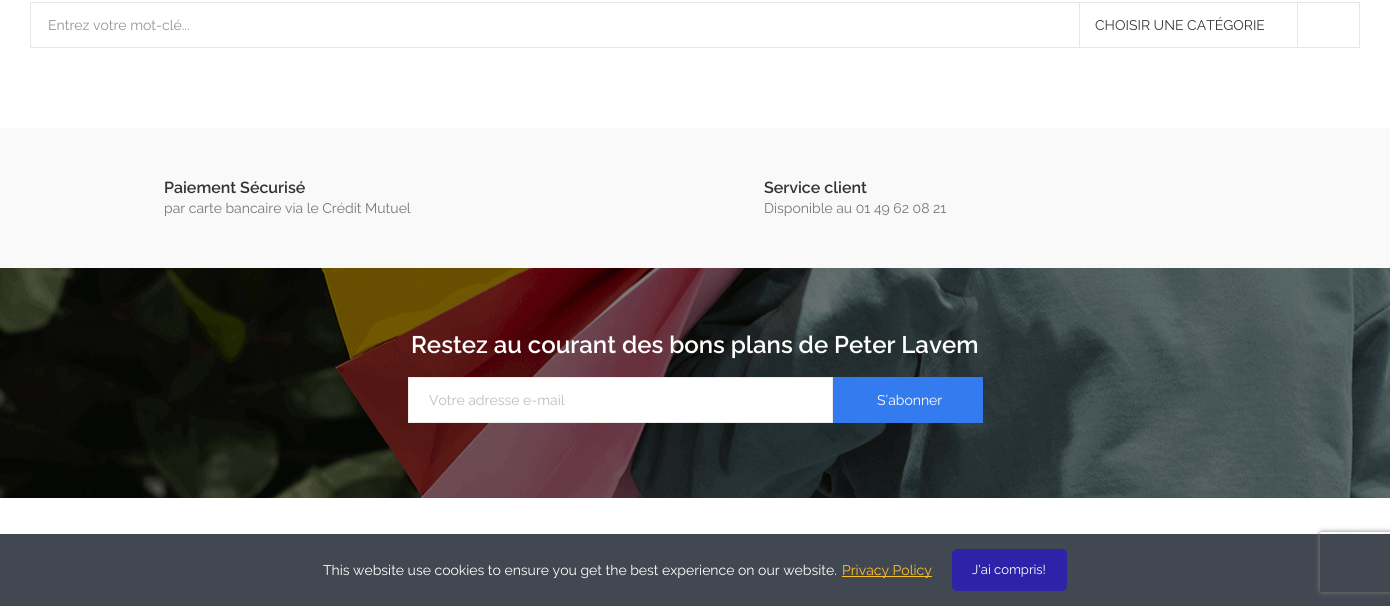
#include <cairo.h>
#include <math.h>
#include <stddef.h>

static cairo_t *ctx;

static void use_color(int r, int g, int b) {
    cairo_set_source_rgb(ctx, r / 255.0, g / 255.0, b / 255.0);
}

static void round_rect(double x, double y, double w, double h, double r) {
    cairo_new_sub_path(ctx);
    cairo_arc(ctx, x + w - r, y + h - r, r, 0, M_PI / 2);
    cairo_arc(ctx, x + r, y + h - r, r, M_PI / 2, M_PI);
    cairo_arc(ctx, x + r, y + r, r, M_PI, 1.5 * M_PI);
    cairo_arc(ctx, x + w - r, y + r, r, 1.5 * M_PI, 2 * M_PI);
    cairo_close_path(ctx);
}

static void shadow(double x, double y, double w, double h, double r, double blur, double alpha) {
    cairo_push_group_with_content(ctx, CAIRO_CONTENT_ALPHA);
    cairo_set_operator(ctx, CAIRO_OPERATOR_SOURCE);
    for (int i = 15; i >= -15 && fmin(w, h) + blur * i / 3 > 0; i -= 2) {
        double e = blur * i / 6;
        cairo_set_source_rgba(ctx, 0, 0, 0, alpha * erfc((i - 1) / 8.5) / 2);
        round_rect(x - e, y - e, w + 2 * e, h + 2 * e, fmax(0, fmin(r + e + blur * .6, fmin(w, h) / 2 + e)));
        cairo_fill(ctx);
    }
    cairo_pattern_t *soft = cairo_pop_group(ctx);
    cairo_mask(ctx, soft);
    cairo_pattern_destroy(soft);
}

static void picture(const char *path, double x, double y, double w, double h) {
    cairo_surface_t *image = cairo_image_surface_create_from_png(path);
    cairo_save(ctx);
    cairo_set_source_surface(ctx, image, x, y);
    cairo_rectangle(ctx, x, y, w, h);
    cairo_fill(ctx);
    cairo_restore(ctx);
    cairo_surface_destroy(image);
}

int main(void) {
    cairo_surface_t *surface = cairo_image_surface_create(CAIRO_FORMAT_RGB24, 1390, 606);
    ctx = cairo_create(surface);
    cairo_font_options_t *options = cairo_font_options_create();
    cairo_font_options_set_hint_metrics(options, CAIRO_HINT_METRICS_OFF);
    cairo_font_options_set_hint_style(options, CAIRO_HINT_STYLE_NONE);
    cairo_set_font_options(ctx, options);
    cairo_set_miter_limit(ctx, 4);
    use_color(255, 255, 255);
    cairo_paint(ctx);
    cairo_rectangle(ctx, 30.5, 2.5, 1329, 45);
    use_color(230, 230, 230);
    cairo_set_line_width(ctx, 1);
    cairo_stroke(ctx);
    cairo_select_font_face(ctx, "Raleway", CAIRO_FONT_SLANT_NORMAL, CAIRO_FONT_WEIGHT_NORMAL);
    cairo_set_font_size(ctx, 14);
    use_color(148, 148, 148);
    cairo_move_to(ctx, 48, 30);
    cairo_show_text(ctx, "Entrez votre mot-clé...");
    use_color(230, 230, 230);
    cairo_rectangle(ctx, 1297, 2, 1, 46);
    cairo_fill(ctx);
    cairo_rectangle(ctx, 1079, 2, 1, 46);
    cairo_fill(ctx);
    use_color(58, 57, 57);
    cairo_move_to(ctx, 1095, 30);
    cairo_show_text(ctx, "CHOISIR UNE CATÉGORIE");
    use_color(249, 249, 249);
    cairo_rectangle(ctx, 0, 128, 1390, 140);
    cairo_fill(ctx);
    cairo_select_font_face(ctx, "Raleway SemiBold", CAIRO_FONT_SLANT_NORMAL, CAIRO_FONT_WEIGHT_NORMAL);
    cairo_set_font_size(ctx, 16);
    use_color(51, 51, 51);
    cairo_move_to(ctx, 164, 193);
    cairo_show_text(ctx, "Paiement Sécurisé");
    cairo_select_font_face(ctx, "Raleway", CAIRO_FONT_SLANT_NORMAL, CAIRO_FONT_WEIGHT_NORMAL);
    cairo_set_font_size(ctx, 14);
    use_color(119, 119, 119);
    cairo_move_to(ctx, 164, 213);
    cairo_show_text(ctx, "par carte bancaire via le Crédit Mutuel");
    cairo_select_font_face(ctx, "Raleway SemiBold", CAIRO_FONT_SLANT_NORMAL, CAIRO_FONT_WEIGHT_NORMAL);
    cairo_set_font_size(ctx, 16);
    use_color(51, 51, 51);
    cairo_move_to(ctx, 764, 193);
    cairo_show_text(ctx, "Service client");
    cairo_select_font_face(ctx, "Raleway", CAIRO_FONT_SLANT_NORMAL, CAIRO_FONT_WEIGHT_NORMAL);
    cairo_set_font_size(ctx, 14);
    use_color(119, 119, 119);
    cairo_move_to(ctx, 764, 213);
    cairo_show_text(ctx, "Disponible au 01 49 62 08 21");
    picture("img1.png", 0, 268, 1390, 230);
    cairo_select_font_face(ctx, "Raleway SemiBold", CAIRO_FONT_SLANT_NORMAL, CAIRO_FONT_WEIGHT_NORMAL);
    cairo_set_font_size(ctx, 24);
    use_color(255, 255, 255);
    cairo_move_to(ctx, 411, 353);
    cairo_show_text(ctx, "Restez au courant des bons plans de Peter Lavem");
    cairo_rectangle(ctx, 408.5, 377.5, 424, 45);
    cairo_fill_preserve(ctx);
    use_color(235, 235, 235);
    cairo_stroke(ctx);
    cairo_select_font_face(ctx, "Raleway", CAIRO_FONT_SLANT_NORMAL, CAIRO_FONT_WEIGHT_NORMAL);
    cairo_set_font_size(ctx, 14);
    use_color(189, 189, 189);
    cairo_move_to(ctx, 429, 405);
    cairo_show_text(ctx, "Votre adresse e-mail");
    use_color(52, 123, 240);
    cairo_rectangle(ctx, 833, 377, 150, 46);
    cairo_fill(ctx);
    use_color(255, 255, 255);
    cairo_move_to(ctx, 877, 405);
    cairo_show_text(ctx, "S’abonner");
    use_color(0, 0, 0);
    shadow(1320, 536, 50, 50, 25, 2.5, 0.17);
    use_color(66, 72, 81);
    cairo_rectangle(ctx, 0, 534, 1390, 72);
    cairo_fill(ctx);
    cairo_save(ctx);
    cairo_set_fill_rule(ctx, CAIRO_FILL_RULE_EVEN_ODD);
    cairo_new_path(ctx);
    cairo_move_to(ctx, 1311, 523);
    cairo_line_to(ctx, 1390, 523);
    cairo_line_to(ctx, 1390, 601);
    cairo_line_to(ctx, 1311, 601);
    cairo_close_path(ctx);
    cairo_move_to(ctx, 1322, 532);
    cairo_line_to(ctx, 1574, 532);
    cairo_curve_to(ctx, 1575, 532, 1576, 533, 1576, 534);
    cairo_line_to(ctx, 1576, 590);
    cairo_curve_to(ctx, 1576, 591, 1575, 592, 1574, 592);
    cairo_line_to(ctx, 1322, 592);
    cairo_curve_to(ctx, 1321, 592, 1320, 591, 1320, 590);
    cairo_line_to(ctx, 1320, 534);
    cairo_curve_to(ctx, 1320, 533, 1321, 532, 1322, 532);
    cairo_close_path(ctx);
    cairo_clip(ctx);
    use_color(128, 128, 128);
    shadow(1320, 532, 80, 60, 2, 2.5, 1);
    cairo_restore(ctx);
    use_color(255, 255, 255);
    cairo_move_to(ctx, 323, 575);
    cairo_show_text(ctx, "This website use cookies to ensure you get the best experience on our website.");
    use_color(251, 194, 39);
    cairo_rectangle(ctx, 842, 576, 90, 1);
    cairo_fill(ctx);
    cairo_move_to(ctx, 842, 575);
    cairo_show_text(ctx, "Privacy Policy");
    use_color(46, 34, 168);
    round_rect(952, 549, 115, 42, 5);
    cairo_fill(ctx);
    cairo_set_font_size(ctx, 13);
    use_color(255, 255, 255);
    cairo_move_to(ctx, 972, 574);
    cairo_show_text(ctx, "J'ai compris!");
    cairo_surface_write_to_png(surface, "result.png");
    cairo_font_options_destroy(options);
    cairo_destroy(ctx);
    cairo_surface_destroy(surface);
    return 0;
}
